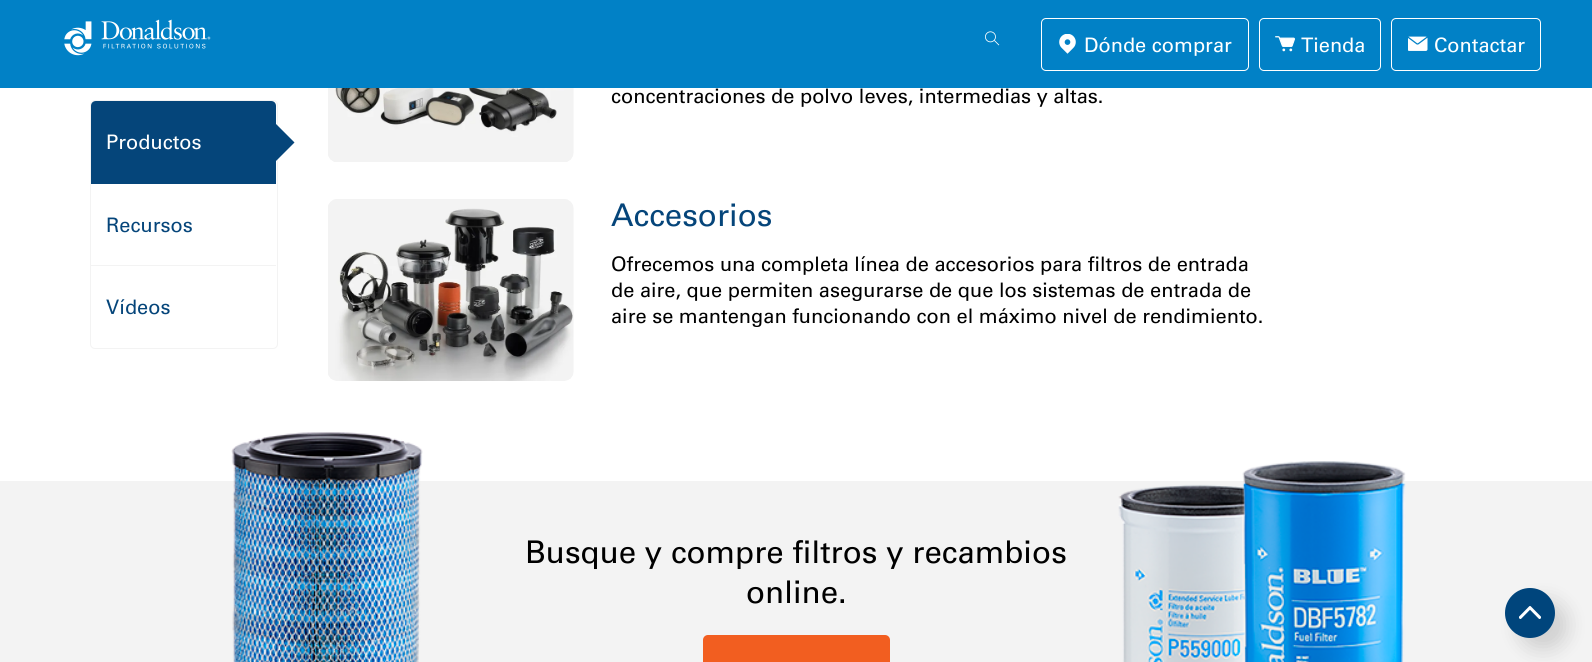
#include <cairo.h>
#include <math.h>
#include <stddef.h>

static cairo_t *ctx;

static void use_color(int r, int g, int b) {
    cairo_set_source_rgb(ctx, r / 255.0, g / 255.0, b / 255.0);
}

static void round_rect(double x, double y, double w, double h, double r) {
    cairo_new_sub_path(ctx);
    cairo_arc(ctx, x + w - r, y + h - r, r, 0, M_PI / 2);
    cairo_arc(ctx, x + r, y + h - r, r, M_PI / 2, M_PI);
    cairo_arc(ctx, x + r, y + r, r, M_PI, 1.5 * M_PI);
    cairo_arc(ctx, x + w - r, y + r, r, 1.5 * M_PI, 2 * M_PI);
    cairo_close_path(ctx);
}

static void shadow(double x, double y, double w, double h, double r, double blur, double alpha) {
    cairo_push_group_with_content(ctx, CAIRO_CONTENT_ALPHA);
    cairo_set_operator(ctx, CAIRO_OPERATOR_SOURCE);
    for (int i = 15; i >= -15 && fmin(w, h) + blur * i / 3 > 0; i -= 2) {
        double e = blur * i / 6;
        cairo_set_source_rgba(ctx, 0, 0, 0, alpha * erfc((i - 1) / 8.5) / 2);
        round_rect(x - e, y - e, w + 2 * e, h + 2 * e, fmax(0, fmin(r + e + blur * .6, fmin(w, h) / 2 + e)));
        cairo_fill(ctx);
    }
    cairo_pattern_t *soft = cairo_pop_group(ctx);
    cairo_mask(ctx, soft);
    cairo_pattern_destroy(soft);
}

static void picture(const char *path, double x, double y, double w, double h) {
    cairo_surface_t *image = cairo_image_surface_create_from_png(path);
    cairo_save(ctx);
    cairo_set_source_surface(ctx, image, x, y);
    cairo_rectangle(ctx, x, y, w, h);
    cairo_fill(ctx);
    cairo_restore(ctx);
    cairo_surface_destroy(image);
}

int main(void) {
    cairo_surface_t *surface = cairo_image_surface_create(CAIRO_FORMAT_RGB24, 1592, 662);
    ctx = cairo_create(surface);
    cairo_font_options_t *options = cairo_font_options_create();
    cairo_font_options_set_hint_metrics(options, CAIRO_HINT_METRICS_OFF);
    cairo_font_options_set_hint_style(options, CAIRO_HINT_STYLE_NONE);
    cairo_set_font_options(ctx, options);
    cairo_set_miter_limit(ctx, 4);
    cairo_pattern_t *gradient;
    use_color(255, 255, 255);
    cairo_paint(ctx);
    use_color(1, 129, 198);
    cairo_rectangle(ctx, 0, 0, 1592, 88);
    cairo_fill(ctx);
    picture("img1.png", 64, 19, 147, 37);
    picture("img2.png", 985, 31, 15, 15);
    round_rect(1041.5, 18.5, 207, 52, 4.5);
    use_color(255, 255, 255);
    cairo_set_line_width(ctx, 1);
    cairo_stroke(ctx);
    picture("img3.png", 1059, 34, 17, 20);
    cairo_select_font_face(ctx, "Univers", CAIRO_FONT_SLANT_NORMAL, CAIRO_FONT_WEIGHT_NORMAL);
    cairo_set_font_size(ctx, 20);
    cairo_move_to(ctx, 1084, 52);
    cairo_show_text(ctx, "Dónde comprar");
    round_rect(1259.5, 18.5, 121, 52, 4.5);
    cairo_stroke(ctx);
    picture("img4.png", 1275, 36, 20, 16);
    cairo_move_to(ctx, 1301, 52);
    cairo_show_text(ctx, "Tienda");
    round_rect(1391.5, 18.5, 149, 52, 4.5);
    cairo_stroke(ctx);
    picture("img5.png", 1408, 36, 20, 15);
    cairo_move_to(ctx, 1434, 52);
    cairo_show_text(ctx, "Contactar");
    round_rect(90.5, 100.5, 187, 248, 4.5);
    use_color(243, 243, 243);
    cairo_stroke(ctx);
    use_color(5, 69, 122);
    cairo_new_path(ctx);
    cairo_move_to(ctx, 96, 101);
    cairo_line_to(ctx, 271, 101);
    cairo_curve_to(ctx, 274, 101, 276, 103, 276, 106);
    cairo_line_to(ctx, 276, 184);
    cairo_line_to(ctx, 91, 184);
    cairo_line_to(ctx, 91, 106);
    cairo_curve_to(ctx, 91, 103, 93, 101, 96, 101);
    cairo_close_path(ctx);
    cairo_fill(ctx);
    use_color(255, 255, 255);
    cairo_move_to(ctx, 106, 149);
    cairo_show_text(ctx, "Productos");
    use_color(5, 69, 122);
    cairo_new_path(ctx);
    cairo_move_to(ctx, 275, 123);
    cairo_line_to(ctx, 294.5, 142.5);
    cairo_line_to(ctx, 275, 162);
    cairo_line_to(ctx, 255.5, 142.5);
    cairo_close_path(ctx);
    cairo_fill(ctx);
    use_color(243, 243, 243);
    cairo_rectangle(ctx, 91, 265, 185, 1);
    cairo_fill(ctx);
    use_color(5, 69, 122);
    cairo_move_to(ctx, 106, 232);
    cairo_show_text(ctx, "Recursos");
    cairo_move_to(ctx, 106, 314);
    cairo_show_text(ctx, "Vídeos");
    picture("img6.png", 328, 88, 246, 74);
    use_color(0, 0, 0);
    cairo_move_to(ctx, 611, 103);
    cairo_show_text(ctx, "concentraciones de polvo leves, intermedias y altas.");
    picture("img7.png", 328, 199, 246, 182);
    cairo_set_font_size(ctx, 31.25);
    use_color(5, 69, 122);
    cairo_move_to(ctx, 611, 226);
    cairo_show_text(ctx, "Accesorios");
    cairo_set_font_size(ctx, 20);
    use_color(0, 0, 0);
    cairo_move_to(ctx, 611, 271);
    cairo_show_text(ctx, "Ofrecemos una completa línea de accesorios para filtros de entrada");
    cairo_move_to(ctx, 611, 297);
    cairo_show_text(ctx, "de aire, que permiten asegurarse de que los sistemas de entrada de");
    cairo_move_to(ctx, 611, 323);
    cairo_show_text(ctx, "aire se mantengan funcionando con el máximo nivel de rendimiento.");
    gradient = cairo_pattern_create_linear(796, 419, 796, 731);
    cairo_pattern_add_color_stop_rgba(gradient, 0, 1, 1, 1, 1);
    cairo_pattern_add_color_stop_rgba(gradient, 0.2, 1, 1, 1, 1);
    cairo_pattern_add_color_stop_rgba(gradient, 0.2, 0.953, 0.953, 0.953, 1);
    cairo_set_source(ctx, gradient);
    cairo_pattern_destroy(gradient);
    cairo_rectangle(ctx, 0, 481, 1592, 181);
    cairo_fill(ctx);
    picture("img8.png", 231, 432, 192, 230);
    cairo_set_font_size(ctx, 31.25);
    use_color(0, 0, 0);
    cairo_move_to(ctx, 525, 563);
    cairo_show_text(ctx, "Busque y compre filtros y recambios");
    cairo_move_to(ctx, 746, 603);
    cairo_show_text(ctx, "online.");
    use_color(242, 94, 32);
    round_rect(703, 635, 187, 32, 5);
    cairo_fill(ctx);
    picture("img9.png", 1118, 461, 288, 201);
    use_color(0, 0, 0);
    shadow(1518, 600, 50, 50, 25, 9.5, 0.14);
    use_color(0, 69, 124);
    cairo_arc(ctx, 1530, 613, 25, 0, 2 * M_PI);
    cairo_fill(ctx);
    picture("img10.png", 1519, 606, 22, 13);
    cairo_surface_write_to_png(surface, "result.png");
    cairo_font_options_destroy(options);
    cairo_destroy(ctx);
    cairo_surface_destroy(surface);
    return 0;
}
